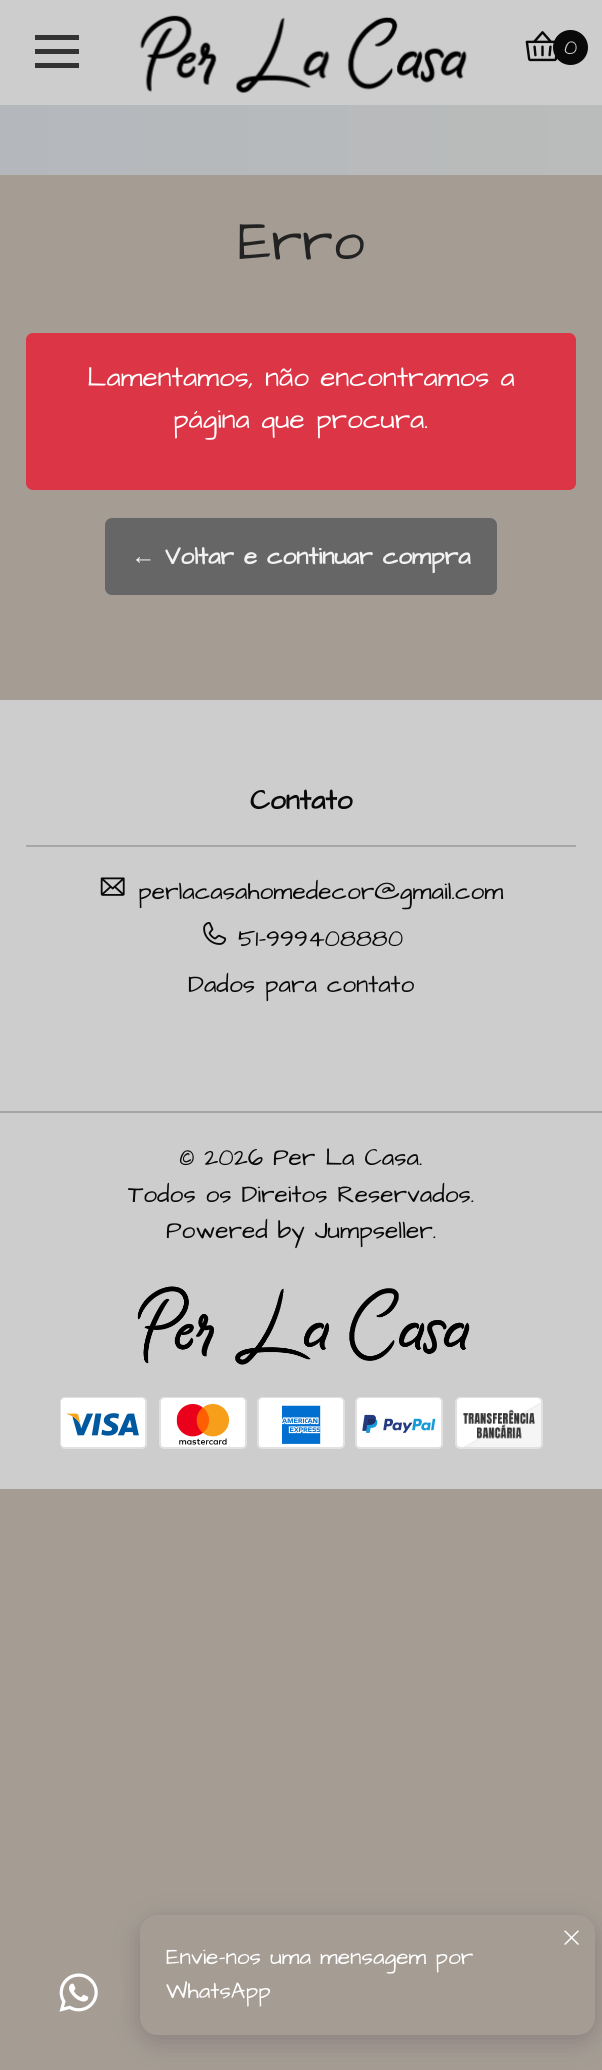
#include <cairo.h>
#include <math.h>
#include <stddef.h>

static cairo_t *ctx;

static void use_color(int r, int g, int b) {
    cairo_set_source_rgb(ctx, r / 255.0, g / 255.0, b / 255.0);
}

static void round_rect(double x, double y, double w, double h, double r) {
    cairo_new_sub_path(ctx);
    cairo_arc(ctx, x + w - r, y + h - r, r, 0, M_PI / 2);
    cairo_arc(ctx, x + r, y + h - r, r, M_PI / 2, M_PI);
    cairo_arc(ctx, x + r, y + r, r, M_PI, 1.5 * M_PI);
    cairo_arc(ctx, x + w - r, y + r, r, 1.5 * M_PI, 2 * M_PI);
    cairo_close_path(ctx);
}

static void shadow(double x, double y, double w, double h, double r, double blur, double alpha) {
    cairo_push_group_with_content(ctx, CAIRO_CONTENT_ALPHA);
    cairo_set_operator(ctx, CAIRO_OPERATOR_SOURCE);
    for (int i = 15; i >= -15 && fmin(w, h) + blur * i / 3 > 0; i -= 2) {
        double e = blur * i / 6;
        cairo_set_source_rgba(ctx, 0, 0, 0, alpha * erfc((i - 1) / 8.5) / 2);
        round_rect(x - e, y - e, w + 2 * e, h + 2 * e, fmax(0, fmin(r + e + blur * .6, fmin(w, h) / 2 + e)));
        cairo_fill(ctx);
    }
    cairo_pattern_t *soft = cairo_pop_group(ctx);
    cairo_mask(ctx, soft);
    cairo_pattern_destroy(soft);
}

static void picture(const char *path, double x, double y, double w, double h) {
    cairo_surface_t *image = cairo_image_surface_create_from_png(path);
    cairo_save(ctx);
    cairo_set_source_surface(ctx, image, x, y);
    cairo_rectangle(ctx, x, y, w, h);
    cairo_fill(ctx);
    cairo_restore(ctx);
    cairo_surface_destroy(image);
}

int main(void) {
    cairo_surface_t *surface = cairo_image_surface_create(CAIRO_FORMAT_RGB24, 602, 2070);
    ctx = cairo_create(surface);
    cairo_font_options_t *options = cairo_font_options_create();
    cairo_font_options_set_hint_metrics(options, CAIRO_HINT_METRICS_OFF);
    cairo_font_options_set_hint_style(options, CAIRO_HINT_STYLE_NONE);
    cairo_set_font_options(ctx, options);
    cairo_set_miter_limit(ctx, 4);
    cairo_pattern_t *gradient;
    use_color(165, 157, 148);
    cairo_paint(ctx);
    use_color(205, 205, 205);
    cairo_rectangle(ctx, 0, 0, 602, 105);
    cairo_fill(ctx);
    use_color(51, 51, 51);
    cairo_rectangle(ctx, 35, 35, 44, 5);
    cairo_fill(ctx);
    cairo_rectangle(ctx, 35, 49, 44, 5);
    cairo_fill(ctx);
    cairo_rectangle(ctx, 35, 63, 44, 5);
    cairo_fill(ctx);
    picture("img1.png", 139, 15, 328, 79);
    picture("img2.png", 525, 31, 33, 31);
    use_color(9, 9, 9);
    cairo_arc(ctx, 570.5, 47.5, 17.5, 0, 2 * M_PI);
    cairo_fill(ctx);
    cairo_select_font_face(ctx, "Architects Daughter", CAIRO_FONT_SLANT_NORMAL, CAIRO_FONT_WEIGHT_NORMAL);
    cairo_set_font_size(ctx, 21);
    use_color(205, 205, 205);
    cairo_move_to(ctx, 564, 54);
    cairo_show_text(ctx, "0");
    gradient = cairo_pattern_create_linear(0, 140, 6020, 140);
    cairo_pattern_add_color_stop_rgba(gradient, 0, 0.706, 0.722, 0.741, 1);
    cairo_pattern_add_color_stop_rgba(gradient, 0.33, 0.784, 0.765, 0.714, 1);
    cairo_pattern_add_color_stop_rgba(gradient, 1, 0.784, 0.765, 0.714, 1);
    cairo_set_source(ctx, gradient);
    cairo_pattern_destroy(gradient);
    cairo_rectangle(ctx, 0, 105, 602, 70);
    cairo_fill(ctx);
    cairo_set_font_size(ctx, 56);
    use_color(34, 34, 34);
    cairo_move_to(ctx, 238, 259);
    cairo_show_text(ctx, "Erro");
    use_color(220, 53, 69);
    round_rect(26, 333, 550, 157, 7);
    cairo_fill(ctx);
    cairo_set_font_size(ctx, 28);
    use_color(255, 255, 255);
    cairo_move_to(ctx, 87, 386);
    cairo_show_text(ctx, "Lamentamos, não encontramos a");
    cairo_move_to(ctx, 173, 428);
    cairo_show_text(ctx, "página que procura.");
    use_color(102, 102, 102);
    round_rect(105, 518, 392, 77, 7);
    cairo_fill(ctx);
    cairo_select_font_face(ctx, "Liberation Serif", CAIRO_FONT_SLANT_NORMAL, CAIRO_FONT_WEIGHT_BOLD);
    cairo_set_font_size(ctx, 24.5);
    use_color(241, 241, 241);
    cairo_move_to(ctx, 131, 564);
    cairo_show_text(ctx, "←");
    cairo_select_font_face(ctx, "Architects Daughter", CAIRO_FONT_SLANT_NORMAL, CAIRO_FONT_WEIGHT_BOLD);
    cairo_move_to(ctx, 165, 564);
    cairo_show_text(ctx, "Voltar e continuar compra");
    use_color(205, 205, 205);
    cairo_rectangle(ctx, 0, 700, 602, 789);
    cairo_fill(ctx);
    use_color(166, 166, 166);
    cairo_rectangle(ctx, 26, 845, 550, 2);
    cairo_fill(ctx);
    cairo_set_font_size(ctx, 28);
    use_color(9, 9, 9);
    cairo_move_to(ctx, 250, 809);
    cairo_show_text(ctx, "Contato");
    picture("img3.png", 100, 877, 25, 19);
    cairo_select_font_face(ctx, "Architects Daughter", CAIRO_FONT_SLANT_NORMAL, CAIRO_FONT_WEIGHT_NORMAL);
    cairo_set_font_size(ctx, 24.5);
    cairo_move_to(ctx, 138, 899);
    cairo_show_text(ctx, "perlacasahomedecor@gmail.com");
    picture("img4.png", 203, 922, 24, 23);
    cairo_move_to(ctx, 238, 946);
    cairo_show_text(ctx, "51-999408880");
    cairo_move_to(ctx, 188, 992);
    cairo_show_text(ctx, "Dados para contato");
    use_color(166, 166, 166);
    cairo_rectangle(ctx, 0, 1111, 602, 2);
    cairo_fill(ctx);
    use_color(9, 9, 9);
    cairo_move_to(ctx, 179, 1165);
    cairo_show_text(ctx, "© 2026 Per La Casa.");
    cairo_move_to(ctx, 128, 1202);
    cairo_show_text(ctx, "Todos os Direitos Reservados.");
    cairo_move_to(ctx, 166, 1238);
    cairo_show_text(ctx, "Powered by Jumpseller.");
    picture("img5.png", 137, 1286, 333, 79);
    use_color(245, 245, 245);
    round_rect(61, 1398, 85, 50, 4);
    cairo_fill_preserve(ctx);
    use_color(225, 225, 225);
    cairo_stroke(ctx);
    picture("img6.png", 61, 1398, 84, 49);
    use_color(245, 245, 245);
    round_rect(160, 1398, 86, 50, 4);
    cairo_fill_preserve(ctx);
    use_color(225, 225, 225);
    cairo_stroke(ctx);
    picture("img7.png", 161, 1398, 84, 49);
    use_color(245, 245, 245);
    round_rect(258, 1398, 86, 50, 4);
    cairo_fill_preserve(ctx);
    use_color(225, 225, 225);
    cairo_stroke(ctx);
    picture("img8.png", 259, 1398, 84, 49);
    use_color(245, 245, 245);
    round_rect(356, 1398, 86, 50, 4);
    cairo_fill_preserve(ctx);
    use_color(225, 225, 225);
    cairo_stroke(ctx);
    picture("img9.png", 357, 1398, 84, 49);
    use_color(245, 245, 245);
    round_rect(456, 1398, 86, 50, 4);
    cairo_fill_preserve(ctx);
    use_color(225, 225, 225);
    cairo_stroke(ctx);
    use_color(255, 255, 255);
    cairo_new_path(ctx);
    cairo_move_to(ctx, 461, 1398);
    cairo_line_to(ctx, 537, 1398);
    cairo_curve_to(ctx, 539, 1398, 541, 1400, 541, 1402);
    cairo_line_to(ctx, 541, 1404);
    cairo_line_to(ctx, 466, 1447);
    cairo_line_to(ctx, 461, 1447);
    cairo_curve_to(ctx, 459, 1447, 457, 1445, 457, 1443);
    cairo_line_to(ctx, 457, 1402);
    cairo_curve_to(ctx, 457, 1400, 459, 1398, 461, 1398);
    cairo_close_path(ctx);
    cairo_fill(ctx);
    cairo_save(ctx);
    round_rect(457, 1398, 84, 49, 4);
    cairo_clip(ctx);
    cairo_new_path(ctx);
    cairo_move_to(ctx, 488, 1233.5);
    cairo_line_to(ctx, 575, 1383.5);
    cairo_line_to(ctx, 424.5, 1470.5);
    cairo_line_to(ctx, 338, 1320.5);
    cairo_close_path(ctx);
    use_color(238, 238, 238);
    cairo_set_line_width(ctx, 1.7);
    cairo_stroke(ctx);
    cairo_restore(ctx);
    picture("img10.png", 462, 1409, 73, 30);
    use_color(75, 57, 75);
    shadow(140, 1922, 455, 120, 18, 13, 0.3);
    use_color(165, 157, 148);
    round_rect(35, 1948, 88, 87, 43.5);
    cairo_fill(ctx);
    picture("img11.png", 59, 1973, 39, 39);
    round_rect(140, 1915, 455, 120, 18);
    cairo_fill(ctx);
    picture("img12.png", 564, 1930, 15, 15);
    cairo_set_font_size(ctx, 22.75);
    use_color(255, 255, 255);
    cairo_move_to(ctx, 166, 1964);
    cairo_show_text(ctx, "Envie-nos uma mensagem por");
    cairo_move_to(ctx, 166, 1998);
    cairo_show_text(ctx, "WhatsApp");
    cairo_surface_write_to_png(surface, "result.png");
    cairo_font_options_destroy(options);
    cairo_destroy(ctx);
    cairo_surface_destroy(surface);
    return 0;
}
